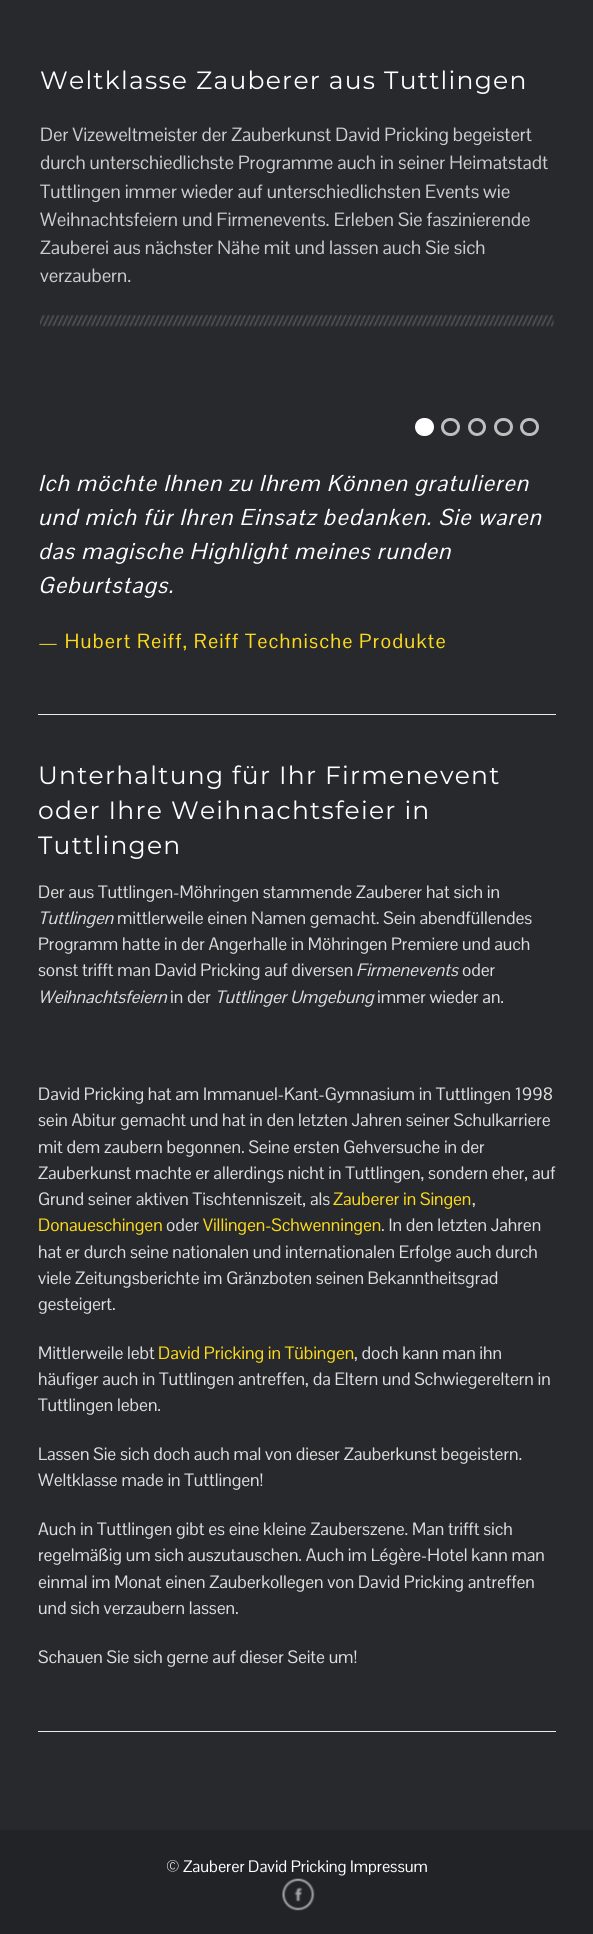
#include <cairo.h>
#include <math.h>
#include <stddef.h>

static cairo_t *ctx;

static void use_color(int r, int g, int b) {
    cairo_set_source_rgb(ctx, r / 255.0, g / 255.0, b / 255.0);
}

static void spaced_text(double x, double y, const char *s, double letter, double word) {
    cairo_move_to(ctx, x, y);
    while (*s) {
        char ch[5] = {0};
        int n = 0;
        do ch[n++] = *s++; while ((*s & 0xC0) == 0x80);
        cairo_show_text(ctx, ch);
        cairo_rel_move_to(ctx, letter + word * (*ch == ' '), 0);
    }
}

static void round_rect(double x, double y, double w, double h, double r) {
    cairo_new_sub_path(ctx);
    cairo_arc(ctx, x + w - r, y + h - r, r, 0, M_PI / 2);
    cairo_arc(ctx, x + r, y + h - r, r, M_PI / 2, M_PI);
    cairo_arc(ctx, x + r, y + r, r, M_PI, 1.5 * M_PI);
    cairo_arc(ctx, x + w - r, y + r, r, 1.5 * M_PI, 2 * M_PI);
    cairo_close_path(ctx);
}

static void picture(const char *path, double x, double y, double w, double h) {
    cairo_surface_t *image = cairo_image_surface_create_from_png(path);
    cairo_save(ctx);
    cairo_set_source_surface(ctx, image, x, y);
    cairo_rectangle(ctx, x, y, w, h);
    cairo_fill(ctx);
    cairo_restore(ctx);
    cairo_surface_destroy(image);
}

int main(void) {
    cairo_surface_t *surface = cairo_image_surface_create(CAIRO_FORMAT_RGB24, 593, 1934);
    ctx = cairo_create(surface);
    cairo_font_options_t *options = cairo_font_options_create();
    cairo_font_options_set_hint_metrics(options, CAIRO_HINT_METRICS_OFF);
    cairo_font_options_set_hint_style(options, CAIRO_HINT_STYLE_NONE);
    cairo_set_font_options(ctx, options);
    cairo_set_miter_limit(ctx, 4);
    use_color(39, 41, 44);
    cairo_paint(ctx);
    cairo_select_font_face(ctx, "Montserrat", CAIRO_FONT_SLANT_NORMAL, CAIRO_FONT_WEIGHT_NORMAL);
    cairo_set_font_size(ctx, 25);
    use_color(255, 255, 255);
    spaced_text(40, 89, "Weltklasse Zauberer aus Tuttlingen", 1.25, 0);
    cairo_select_font_face(ctx, "Pontano Sans", CAIRO_FONT_SLANT_NORMAL, CAIRO_FONT_WEIGHT_NORMAL);
    cairo_set_font_size(ctx, 18.75);
    use_color(204, 204, 204);
    cairo_move_to(ctx, 40, 141);
    cairo_show_text(ctx, "Der Vizeweltmeister der Zauberkunst David Pricking begeistert");
    cairo_move_to(ctx, 40, 169);
    cairo_show_text(ctx, "durch unterschiedlichste Programme auch in seiner Heimatstadt");
    cairo_move_to(ctx, 40, 198);
    cairo_show_text(ctx, "Tuttlingen immer wieder auf unterschiedlichsten Events wie");
    cairo_move_to(ctx, 40, 226);
    cairo_show_text(ctx, "Weihnachtsfeiern und Firmenevents. Erleben Sie faszinierende");
    cairo_move_to(ctx, 40, 254);
    cairo_show_text(ctx, "Zauberei aus nächster Nähe mit und lassen auch Sie sich");
    cairo_move_to(ctx, 40, 282);
    cairo_show_text(ctx, "verzaubern.");
    picture("img1.png", 40, 315, 514, 12);
    use_color(255, 255, 255);
    round_rect(416.5, 419.5, 16, 15, 7.5);
    cairo_fill_preserve(ctx);
    cairo_set_line_width(ctx, 3);
    cairo_stroke(ctx);
    round_rect(442.5, 419.5, 16, 15, 7.5);
    use_color(190, 190, 190);
    cairo_stroke(ctx);
    cairo_arc(ctx, 477, 427, 7.5, 0, 2 * M_PI);
    cairo_stroke(ctx);
    round_rect(495.5, 419.5, 16, 15, 7.5);
    cairo_stroke(ctx);
    round_rect(521.5, 419.5, 16, 15, 7.5);
    cairo_stroke(ctx);
    cairo_select_font_face(ctx, "Pontano Sans", CAIRO_FONT_SLANT_ITALIC, CAIRO_FONT_WEIGHT_NORMAL);
    cairo_set_font_size(ctx, 22.5);
    use_color(255, 255, 255);
    spaced_text(38, 491, "Ich möchte Ihnen zu Ihrem Können gratulieren", 1.25, 0);
    spaced_text(38, 525, "und mich für Ihren Einsatz bedanken. Sie waren", 1.25, 0);
    spaced_text(38, 559, "das magische Highlight meines runden", 1.25, 0);
    spaced_text(38, 593, "Geburtstags.", 1.25, 0);
    cairo_select_font_face(ctx, "Pontano Sans", CAIRO_FONT_SLANT_NORMAL, CAIRO_FONT_WEIGHT_NORMAL);
    cairo_set_font_size(ctx, 20);
    use_color(252, 218, 28);
    spaced_text(38, 648, "— Hubert Reiff, Reiff Technische Produkte", 1.25, 0);
    use_color(235, 235, 235);
    cairo_rectangle(ctx, 38, 714, 518, 1);
    cairo_fill(ctx);
    cairo_select_font_face(ctx, "Montserrat", CAIRO_FONT_SLANT_NORMAL, CAIRO_FONT_WEIGHT_NORMAL);
    cairo_set_font_size(ctx, 25);
    use_color(255, 255, 255);
    spaced_text(38, 784, "Unterhaltung für Ihr Firmenevent", 1.25, 0);
    spaced_text(38, 819, "oder Ihre Weihnachtsfeier in", 1.25, 0);
    spaced_text(38, 854, "Tuttlingen", 1.25, 0);
    cairo_select_font_face(ctx, "Pontano Sans", CAIRO_FONT_SLANT_NORMAL, CAIRO_FONT_WEIGHT_NORMAL);
    cairo_set_font_size(ctx, 17.5);
    use_color(221, 221, 221);
    cairo_move_to(ctx, 38, 898);
    cairo_show_text(ctx, "Der aus Tuttlingen-Möhringen stammende Zauberer hat sich in");
    cairo_select_font_face(ctx, "Pontano Sans", CAIRO_FONT_SLANT_ITALIC, CAIRO_FONT_WEIGHT_NORMAL);
    cairo_move_to(ctx, 38, 924);
    cairo_show_text(ctx, "Tuttlingen");
    cairo_select_font_face(ctx, "Pontano Sans", CAIRO_FONT_SLANT_NORMAL, CAIRO_FONT_WEIGHT_NORMAL);
    cairo_move_to(ctx, 117, 924);
    cairo_show_text(ctx, "mittlerweile einen Namen gemacht. Sein abendfüllendes");
    cairo_move_to(ctx, 38, 950);
    cairo_show_text(ctx, "Programm hatte in der Angerhalle in Möhringen Premiere und auch");
    cairo_move_to(ctx, 38, 976);
    cairo_show_text(ctx, "sonst trifft man David Pricking auf diversen");
    cairo_select_font_face(ctx, "Pontano Sans", CAIRO_FONT_SLANT_ITALIC, CAIRO_FONT_WEIGHT_NORMAL);
    cairo_move_to(ctx, 356, 976);
    cairo_show_text(ctx, "Firmenevents");
    cairo_select_font_face(ctx, "Pontano Sans", CAIRO_FONT_SLANT_NORMAL, CAIRO_FONT_WEIGHT_NORMAL);
    cairo_move_to(ctx, 462, 976);
    cairo_show_text(ctx, "oder");
    cairo_select_font_face(ctx, "Pontano Sans", CAIRO_FONT_SLANT_ITALIC, CAIRO_FONT_WEIGHT_NORMAL);
    cairo_move_to(ctx, 38, 1003);
    cairo_show_text(ctx, "Weihnachtsfeiern");
    cairo_select_font_face(ctx, "Pontano Sans", CAIRO_FONT_SLANT_NORMAL, CAIRO_FONT_WEIGHT_NORMAL);
    cairo_move_to(ctx, 170, 1003);
    cairo_show_text(ctx, "in der");
    cairo_select_font_face(ctx, "Pontano Sans", CAIRO_FONT_SLANT_ITALIC, CAIRO_FONT_WEIGHT_NORMAL);
    cairo_move_to(ctx, 215, 1003);
    cairo_show_text(ctx, "Tuttlinger Umgebung");
    cairo_select_font_face(ctx, "Pontano Sans", CAIRO_FONT_SLANT_NORMAL, CAIRO_FONT_WEIGHT_NORMAL);
    cairo_move_to(ctx, 377, 1003);
    cairo_show_text(ctx, "immer wieder an.");
    cairo_move_to(ctx, 38, 1100);
    cairo_show_text(ctx, "David Pricking hat am Immanuel-Kant-Gymnasium in Tuttlingen 1998");
    cairo_move_to(ctx, 38, 1126);
    cairo_show_text(ctx, "sein Abitur gemacht und hat in den letzten Jahren seiner Schulkarriere");
    cairo_move_to(ctx, 38, 1153);
    cairo_show_text(ctx, "mit dem zaubern begonnen. Seine ersten Gehversuche in der");
    cairo_move_to(ctx, 38, 1179);
    cairo_show_text(ctx, "Zauberkunst machte er allerdings nicht in Tuttlingen, sondern eher, auf");
    cairo_move_to(ctx, 38, 1205);
    cairo_show_text(ctx, "Grund seiner aktiven Tischtenniszeit, als");
    use_color(252, 218, 28);
    cairo_move_to(ctx, 333, 1205);
    cairo_show_text(ctx, "Zauberer in Singen");
    use_color(221, 221, 221);
    cairo_move_to(ctx, 472, 1205);
    cairo_show_text(ctx, ",");
    use_color(252, 218, 28);
    cairo_move_to(ctx, 38, 1231);
    cairo_show_text(ctx, "Donaueschingen");
    use_color(221, 221, 221);
    cairo_move_to(ctx, 166, 1231);
    cairo_show_text(ctx, "oder");
    use_color(252, 218, 28);
    cairo_move_to(ctx, 203, 1231);
    cairo_show_text(ctx, "Villingen-Schwenningen");
    use_color(221, 221, 221);
    cairo_move_to(ctx, 381, 1231);
    cairo_show_text(ctx, ". In den letzten Jahren");
    cairo_move_to(ctx, 38, 1258);
    cairo_show_text(ctx, "hat er durch seine nationalen und internationalen Erfolge auch durch");
    cairo_move_to(ctx, 38, 1284);
    cairo_show_text(ctx, "viele Zeitungsberichte im Gränzboten seinen Bekanntheitsgrad");
    cairo_move_to(ctx, 38, 1310);
    cairo_show_text(ctx, "gesteigert.");
    cairo_move_to(ctx, 38, 1359);
    cairo_show_text(ctx, "Mittlerweile lebt");
    use_color(252, 218, 28);
    cairo_move_to(ctx, 158, 1359);
    cairo_show_text(ctx, "David Pricking in Tübingen");
    use_color(221, 221, 221);
    cairo_move_to(ctx, 354, 1359);
    cairo_show_text(ctx, ", doch kann man ihn");
    cairo_move_to(ctx, 38, 1385);
    cairo_show_text(ctx, "häufiger auch in Tuttlingen antreffen, da Eltern und Schwiegereltern in");
    cairo_move_to(ctx, 38, 1411);
    cairo_show_text(ctx, "Tuttlingen leben.");
    cairo_move_to(ctx, 38, 1460);
    cairo_show_text(ctx, "Lassen Sie sich doch auch mal von dieser Zauberkunst begeistern.");
    cairo_move_to(ctx, 38, 1486);
    cairo_show_text(ctx, "Weltklasse made in Tuttlingen!");
    cairo_move_to(ctx, 38, 1535);
    cairo_show_text(ctx, "Auch in Tuttlingen gibt es eine kleine Zauberszene. Man trifft sich");
    cairo_move_to(ctx, 38, 1561);
    cairo_show_text(ctx, "regelmäßig um sich auszutauschen. Auch im Légère-Hotel kann man");
    cairo_move_to(ctx, 38, 1588);
    cairo_show_text(ctx, "einmal im Monat einen Zauberkollegen von David Pricking antreffen");
    cairo_move_to(ctx, 38, 1614);
    cairo_show_text(ctx, "und sich verzaubern lassen.");
    cairo_move_to(ctx, 38, 1663);
    cairo_show_text(ctx, "Schauen Sie sich gerne auf dieser Seite um!");
    use_color(235, 235, 235);
    cairo_rectangle(ctx, 38, 1731, 518, 1);
    cairo_fill(ctx);
    use_color(33, 35, 38);
    cairo_rectangle(ctx, 0, 1830, 593, 104);
    cairo_fill(ctx);
    cairo_set_font_size(ctx, 16.25);
    use_color(255, 255, 255);
    cairo_move_to(ctx, 166, 1872);
    cairo_show_text(ctx, "© Zauberer David Pricking Impressum");
    picture("img2.png", 282, 1878, 33, 33);
    cairo_surface_write_to_png(surface, "result.png");
    cairo_font_options_destroy(options);
    cairo_destroy(ctx);
    cairo_surface_destroy(surface);
    return 0;
}
